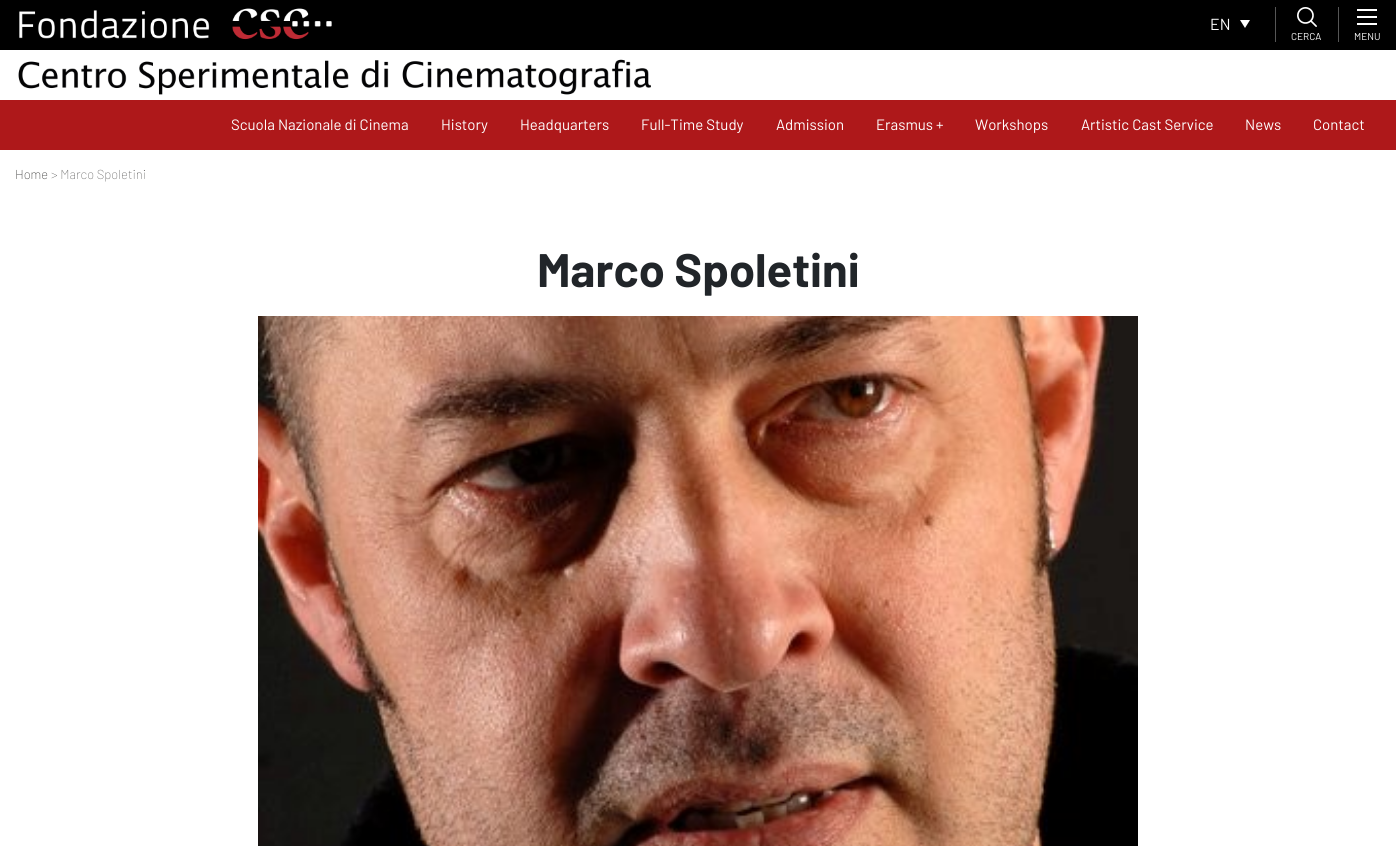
#include <cairo.h>
#include <math.h>
#include <stddef.h>

static cairo_t *ctx;

static void use_color(int r, int g, int b) {
    cairo_set_source_rgb(ctx, r / 255.0, g / 255.0, b / 255.0);
}

static void picture(const char *path, double x, double y, double w, double h) {
    cairo_surface_t *image = cairo_image_surface_create_from_png(path);
    cairo_save(ctx);
    cairo_set_source_surface(ctx, image, x, y);
    cairo_rectangle(ctx, x, y, w, h);
    cairo_fill(ctx);
    cairo_restore(ctx);
    cairo_surface_destroy(image);
}

int main(void) {
    cairo_surface_t *surface = cairo_image_surface_create(CAIRO_FORMAT_RGB24, 1396, 854);
    ctx = cairo_create(surface);
    cairo_font_options_t *options = cairo_font_options_create();
    cairo_font_options_set_hint_metrics(options, CAIRO_HINT_METRICS_OFF);
    cairo_font_options_set_hint_style(options, CAIRO_HINT_STYLE_NONE);
    cairo_set_font_options(ctx, options);
    cairo_set_miter_limit(ctx, 4);
    use_color(255, 255, 255);
    cairo_paint(ctx);
    use_color(0, 0, 0);
    cairo_rectangle(ctx, 0, 0, 1396, 50);
    cairo_fill(ctx);
    picture("img1.png", 19, 8, 313, 32);
    cairo_select_font_face(ctx, "Barlow", CAIRO_FONT_SLANT_NORMAL, CAIRO_FONT_WEIGHT_NORMAL);
    cairo_set_font_size(ctx, 16);
    use_color(255, 255, 255);
    cairo_move_to(ctx, 1210, 30);
    cairo_show_text(ctx, "EN");
    cairo_new_path(ctx);
    cairo_move_to(ctx, 1240, 20);
    cairo_line_to(ctx, 1250, 20);
    cairo_line_to(ctx, 1245, 28);
    cairo_close_path(ctx);
    cairo_fill(ctx);
    use_color(86, 86, 86);
    cairo_rectangle(ctx, 1275, 7, 1, 35);
    cairo_fill(ctx);
    picture("img2.png", 1297, 7, 20, 20);
    cairo_set_font_size(ctx, 10);
    use_color(255, 255, 255);
    cairo_move_to(ctx, 1291, 40);
    cairo_show_text(ctx, "CERCA");
    use_color(86, 86, 86);
    cairo_rectangle(ctx, 1338, 7, 1, 35);
    cairo_fill(ctx);
    use_color(255, 255, 255);
    cairo_rectangle(ctx, 1357, 9, 20, 2);
    cairo_fill(ctx);
    cairo_rectangle(ctx, 1357, 16, 20, 2);
    cairo_fill(ctx);
    cairo_rectangle(ctx, 1357, 23, 20, 2);
    cairo_fill(ctx);
    cairo_move_to(ctx, 1354, 40);
    cairo_show_text(ctx, "MENU");
    picture("img3.png", 18, 59, 633, 36);
    use_color(174, 24, 26);
    cairo_rectangle(ctx, 0, 100, 1396, 50);
    cairo_fill(ctx);
    cairo_set_font_size(ctx, 15);
    use_color(255, 255, 255);
    cairo_move_to(ctx, 231, 130);
    cairo_show_text(ctx, "Scuola Nazionale di Cinema");
    cairo_move_to(ctx, 441, 130);
    cairo_show_text(ctx, "History");
    cairo_move_to(ctx, 520, 130);
    cairo_show_text(ctx, "Headquarters");
    cairo_move_to(ctx, 641, 130);
    cairo_show_text(ctx, "Full-Time Study");
    cairo_move_to(ctx, 776, 130);
    cairo_show_text(ctx, "Admission");
    cairo_move_to(ctx, 876, 130);
    cairo_show_text(ctx, "Erasmus +");
    cairo_move_to(ctx, 975, 130);
    cairo_show_text(ctx, "Workshops");
    cairo_move_to(ctx, 1081, 130);
    cairo_show_text(ctx, "Artistic Cast Service");
    cairo_move_to(ctx, 1245, 130);
    cairo_show_text(ctx, "News");
    cairo_move_to(ctx, 1313, 130);
    cairo_show_text(ctx, "Contact");
    cairo_select_font_face(ctx, "Barlow Thin", CAIRO_FONT_SLANT_NORMAL, CAIRO_FONT_WEIGHT_NORMAL);
    cairo_set_font_size(ctx, 13);
    use_color(22, 22, 21);
    cairo_move_to(ctx, 15, 179);
    cairo_show_text(ctx, "Home");
    use_color(84, 84, 83);
    cairo_move_to(ctx, 51, 179);
    cairo_show_text(ctx, "> Marco Spoletini");
    cairo_select_font_face(ctx, "Barlow", CAIRO_FONT_SLANT_NORMAL, CAIRO_FONT_WEIGHT_BOLD);
    cairo_set_font_size(ctx, 47);
    use_color(33, 37, 41);
    cairo_move_to(ctx, 537, 287);
    cairo_show_text(ctx, "Marco Spoletini");
    picture("img4.png", 258, 316, 880, 530);
    cairo_surface_write_to_png(surface, "result.png");
    cairo_font_options_destroy(options);
    cairo_destroy(ctx);
    cairo_surface_destroy(surface);
    return 0;
}
